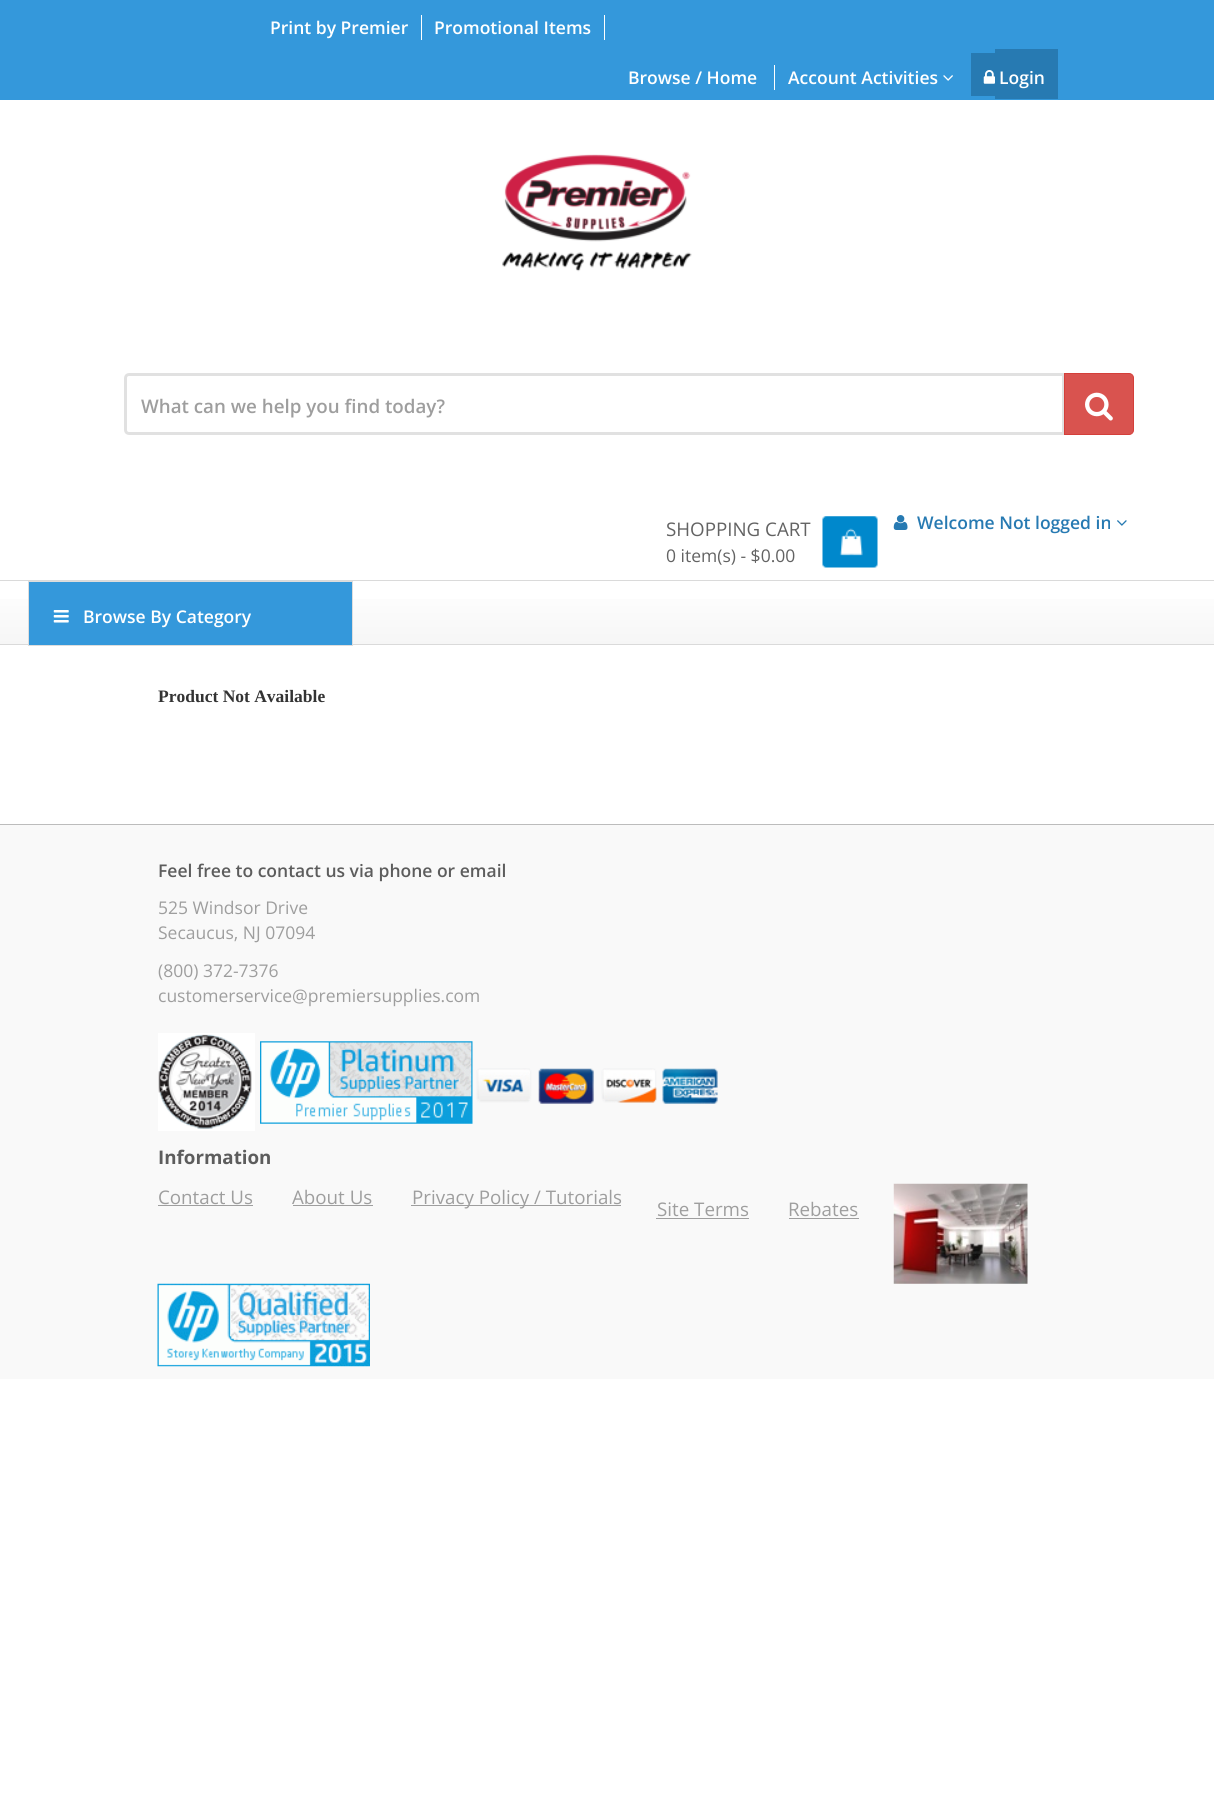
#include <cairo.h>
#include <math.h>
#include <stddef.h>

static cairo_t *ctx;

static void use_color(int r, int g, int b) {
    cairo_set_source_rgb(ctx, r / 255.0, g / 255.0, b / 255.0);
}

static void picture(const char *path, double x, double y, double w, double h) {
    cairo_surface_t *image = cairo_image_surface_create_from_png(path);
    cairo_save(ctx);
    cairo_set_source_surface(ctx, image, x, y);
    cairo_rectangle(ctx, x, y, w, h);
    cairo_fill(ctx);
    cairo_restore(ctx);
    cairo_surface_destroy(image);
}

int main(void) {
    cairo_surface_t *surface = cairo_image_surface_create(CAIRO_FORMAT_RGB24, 1214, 1804);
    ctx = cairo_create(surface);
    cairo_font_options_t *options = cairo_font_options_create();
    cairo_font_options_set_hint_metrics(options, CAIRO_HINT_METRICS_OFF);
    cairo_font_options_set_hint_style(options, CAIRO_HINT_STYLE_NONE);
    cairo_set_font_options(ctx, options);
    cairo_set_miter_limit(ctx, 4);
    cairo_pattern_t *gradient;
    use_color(255, 255, 255);
    cairo_paint(ctx);
    use_color(52, 152, 219);
    cairo_rectangle(ctx, 0, 0, 1214, 100);
    cairo_fill(ctx);
    use_color(255, 255, 255);
    cairo_rectangle(ctx, 421, 15, 1, 25);
    cairo_fill(ctx);
    cairo_select_font_face(ctx, "Open Sans SemiBold", CAIRO_FONT_SLANT_NORMAL, CAIRO_FONT_WEIGHT_NORMAL);
    cairo_set_font_size(ctx, 17.5);
    cairo_move_to(ctx, 270, 34);
    cairo_show_text(ctx, "Print by Premier");
    cairo_rectangle(ctx, 604, 15, 1, 25);
    cairo_fill(ctx);
    cairo_move_to(ctx, 434, 34);
    cairo_show_text(ctx, "Promotional Items");
    cairo_move_to(ctx, 628, 84);
    cairo_show_text(ctx, "Browse / Home");
    cairo_rectangle(ctx, 774, 65, 1, 25);
    cairo_fill(ctx);
    cairo_move_to(ctx, 788, 84);
    cairo_show_text(ctx, "Account Activities");
    picture("img1.png", 943, 75, 10, 6);
    use_color(39, 122, 178);
    cairo_rectangle(ctx, 971, 53, 24, 43);
    cairo_fill(ctx);
    cairo_rectangle(ctx, 995, 49, 63, 50);
    cairo_fill(ctx);
    picture("img2.png", 983, 70, 12, 14);
    use_color(255, 255, 255);
    cairo_move_to(ctx, 999, 84);
    cairo_show_text(ctx, "Login");
    picture("img3.png", 502, 154, 190, 118);
    cairo_new_path(ctx);
    cairo_move_to(ctx, 129, 374.5);
    cairo_line_to(ctx, 1063.5, 374.5);
    cairo_line_to(ctx, 1063.5, 433.5);
    cairo_line_to(ctx, 129, 433.5);
    cairo_curve_to(ctx, 127, 433.5, 125.5, 432, 125.5, 430);
    cairo_line_to(ctx, 125.5, 378);
    cairo_curve_to(ctx, 125.5, 376, 127, 374.5, 129, 374.5);
    cairo_close_path(ctx);
    use_color(225, 225, 225);
    cairo_set_line_width(ctx, 3);
    cairo_stroke(ctx);
    cairo_set_font_size(ctx, 18.75);
    use_color(158, 158, 158);
    cairo_move_to(ctx, 141, 413);
    cairo_show_text(ctx, "What can we help you find today?");
    use_color(217, 83, 79);
    cairo_new_path(ctx);
    cairo_move_to(ctx, 1064.5, 373.5);
    cairo_line_to(ctx, 1129, 373.5);
    cairo_curve_to(ctx, 1131.5, 373.5, 1133.5, 375.5, 1133.5, 378);
    cairo_line_to(ctx, 1133.5, 430);
    cairo_curve_to(ctx, 1133.5, 432.5, 1131.5, 434.5, 1129, 434.5);
    cairo_line_to(ctx, 1064.5, 434.5);
    cairo_close_path(ctx);
    cairo_fill_preserve(ctx);
    use_color(212, 63, 58);
    cairo_set_line_width(ctx, 1);
    cairo_stroke(ctx);
    picture("img4.png", 1085, 392, 28, 29);
    cairo_select_font_face(ctx, "Open Sans", CAIRO_FONT_SLANT_NORMAL, CAIRO_FONT_WEIGHT_NORMAL);
    use_color(99, 99, 99);
    cairo_move_to(ctx, 666, 536);
    cairo_show_text(ctx, "SHOPPING CART");
    cairo_set_font_size(ctx, 17.5);
    cairo_move_to(ctx, 666, 562);
    cairo_show_text(ctx, "0 item(s) - $0.00");
    picture("img5.png", 822, 516, 56, 52);
    picture("img6.png", 893, 515, 15, 15);
    cairo_select_font_face(ctx, "Open Sans SemiBold", CAIRO_FONT_SLANT_NORMAL, CAIRO_FONT_WEIGHT_NORMAL);
    use_color(39, 122, 178);
    cairo_move_to(ctx, 917, 529);
    cairo_show_text(ctx, "Welcome Not logged in");
    picture("img7.png", 1117, 520, 10, 6);
    gradient = cairo_pattern_create_linear(608, 581, 608, 644);
    cairo_pattern_add_color_stop_rgba(gradient, 0, 1, 1, 1, 1);
    cairo_pattern_add_color_stop_rgba(gradient, 1, 0.965, 0.965, 0.965, 1);
    cairo_set_source(ctx, gradient);
    cairo_pattern_destroy(gradient);
    cairo_rectangle(ctx, 0, 599, 1214, 45);
    cairo_fill(ctx);
    use_color(218, 218, 218);
    cairo_rectangle(ctx, 0, 580, 1214, 1);
    cairo_fill(ctx);
    cairo_rectangle(ctx, 0, 644, 1214, 1);
    cairo_fill(ctx);
    use_color(52, 152, 219);
    cairo_rectangle(ctx, 28.5, 581.5, 324, 64);
    cairo_fill_preserve(ctx);
    use_color(221, 221, 221);
    cairo_stroke(ctx);
    picture("img8.png", 53, 610, 16, 13);
    use_color(255, 255, 255);
    cairo_move_to(ctx, 83, 623);
    cairo_show_text(ctx, "Browse By Category");
    cairo_select_font_face(ctx, "Liberation Serif", CAIRO_FONT_SLANT_NORMAL, CAIRO_FONT_WEIGHT_BOLD);
    use_color(51, 51, 51);
    cairo_move_to(ctx, 158, 702);
    cairo_show_text(ctx, "Product Not Available");
    use_color(249, 249, 249);
    cairo_rectangle(ctx, 0, 825, 1214, 554);
    cairo_fill(ctx);
    use_color(188, 188, 188);
    cairo_rectangle(ctx, 0, 824, 1214, 1);
    cairo_fill(ctx);
    cairo_select_font_face(ctx, "Open Sans SemiBold", CAIRO_FONT_SLANT_NORMAL, CAIRO_FONT_WEIGHT_NORMAL);
    use_color(93, 93, 93);
    cairo_move_to(ctx, 158, 877);
    cairo_show_text(ctx, "Feel free to contact us via phone or email");
    cairo_select_font_face(ctx, "Open Sans", CAIRO_FONT_SLANT_NORMAL, CAIRO_FONT_WEIGHT_NORMAL);
    use_color(158, 158, 158);
    cairo_move_to(ctx, 158, 914);
    cairo_show_text(ctx, "525 Windsor Drive");
    cairo_move_to(ctx, 158, 939);
    cairo_show_text(ctx, "Secaucus, NJ 07094");
    cairo_move_to(ctx, 158, 977);
    cairo_show_text(ctx, "(800) 372-7376");
    cairo_move_to(ctx, 158, 1002);
    cairo_show_text(ctx, "customerservice@premiersupplies.com");
    picture("img9.png", 158, 1033, 97, 98);
    picture("img10.png", 260, 1041, 213, 83);
    picture("img11.png", 476, 1068, 242, 36);
    cairo_select_font_face(ctx, "Open Sans", CAIRO_FONT_SLANT_NORMAL, CAIRO_FONT_WEIGHT_BOLD);
    cairo_set_font_size(ctx, 18.75);
    use_color(93, 93, 93);
    cairo_move_to(ctx, 158, 1164);
    cairo_show_text(ctx, "Information");
    picture("img12.png", 893, 1183, 135, 101);
    picture("img13.png", 157, 1283, 213, 84);
    cairo_select_font_face(ctx, "Open Sans", CAIRO_FONT_SLANT_NORMAL, CAIRO_FONT_WEIGHT_NORMAL);
    use_color(158, 158, 158);
    cairo_move_to(ctx, 158, 1204);
    cairo_show_text(ctx, "Contact Us");
    cairo_rectangle(ctx, 158, 1205, 95, 1);
    cairo_fill(ctx);
    cairo_move_to(ctx, 292, 1204);
    cairo_show_text(ctx, "About Us");
    cairo_rectangle(ctx, 293, 1205, 80, 1);
    cairo_fill(ctx);
    cairo_rectangle(ctx, 411, 1205, 210, 1);
    cairo_fill(ctx);
    cairo_move_to(ctx, 412, 1204);
    cairo_show_text(ctx, "Privacy Policy / Tutorials");
    cairo_move_to(ctx, 657, 1216);
    cairo_show_text(ctx, "Site Terms");
    cairo_rectangle(ctx, 656, 1218, 93, 1);
    cairo_fill(ctx);
    cairo_move_to(ctx, 788, 1216);
    cairo_show_text(ctx, "Rebates");
    cairo_rectangle(ctx, 789, 1218, 70, 1);
    cairo_fill(ctx);
    cairo_surface_write_to_png(surface, "result.png");
    cairo_font_options_destroy(options);
    cairo_destroy(ctx);
    cairo_surface_destroy(surface);
    return 0;
}
